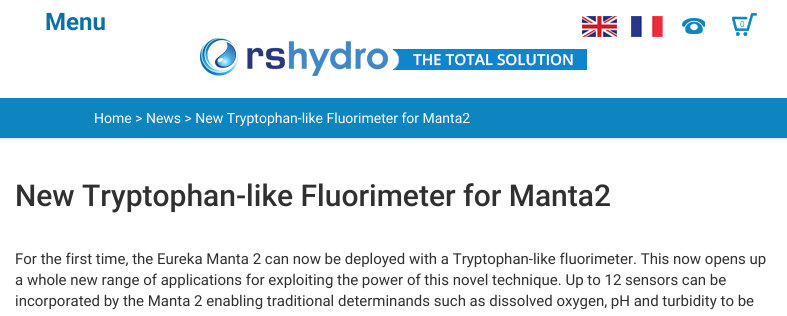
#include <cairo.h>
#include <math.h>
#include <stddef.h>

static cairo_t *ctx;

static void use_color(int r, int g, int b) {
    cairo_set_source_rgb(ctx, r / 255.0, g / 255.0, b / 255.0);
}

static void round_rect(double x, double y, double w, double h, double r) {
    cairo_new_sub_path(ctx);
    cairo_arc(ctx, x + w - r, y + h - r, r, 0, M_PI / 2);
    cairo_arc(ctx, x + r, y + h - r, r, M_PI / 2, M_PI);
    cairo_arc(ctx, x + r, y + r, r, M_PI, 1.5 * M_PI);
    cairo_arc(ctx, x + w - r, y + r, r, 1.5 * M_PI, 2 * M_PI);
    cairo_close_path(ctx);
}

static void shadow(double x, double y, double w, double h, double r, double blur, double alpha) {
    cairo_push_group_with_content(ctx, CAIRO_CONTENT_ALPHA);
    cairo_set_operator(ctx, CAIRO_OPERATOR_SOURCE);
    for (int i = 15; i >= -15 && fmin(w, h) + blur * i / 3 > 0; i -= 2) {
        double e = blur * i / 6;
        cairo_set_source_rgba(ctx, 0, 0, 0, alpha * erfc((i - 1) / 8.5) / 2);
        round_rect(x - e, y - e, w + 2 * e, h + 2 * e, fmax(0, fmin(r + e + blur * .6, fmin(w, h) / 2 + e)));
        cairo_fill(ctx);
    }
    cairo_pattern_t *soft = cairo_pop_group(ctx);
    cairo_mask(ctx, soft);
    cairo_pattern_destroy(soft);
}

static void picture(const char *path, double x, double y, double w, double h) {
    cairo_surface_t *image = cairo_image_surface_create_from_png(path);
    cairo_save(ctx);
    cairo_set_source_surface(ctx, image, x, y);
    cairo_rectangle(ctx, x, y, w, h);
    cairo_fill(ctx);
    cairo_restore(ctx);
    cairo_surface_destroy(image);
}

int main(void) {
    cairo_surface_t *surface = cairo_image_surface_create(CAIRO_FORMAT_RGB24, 787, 316);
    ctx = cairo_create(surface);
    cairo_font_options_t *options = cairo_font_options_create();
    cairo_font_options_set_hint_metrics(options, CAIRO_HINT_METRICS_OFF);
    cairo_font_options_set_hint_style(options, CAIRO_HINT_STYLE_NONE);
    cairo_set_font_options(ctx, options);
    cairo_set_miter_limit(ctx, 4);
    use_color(255, 255, 255);
    cairo_paint(ctx);
    cairo_save(ctx);
    cairo_rectangle(ctx, 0, 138, 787, 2);
    cairo_clip(ctx);
    use_color(0, 0, 0);
    shadow(0, 0, 787, 138, 0, 1.5, 0.22);
    cairo_restore(ctx);
    cairo_select_font_face(ctx, "Roboto", CAIRO_FONT_SLANT_NORMAL, CAIRO_FONT_WEIGHT_BOLD);
    cairo_set_font_size(ctx, 24);
    use_color(13, 112, 161);
    cairo_move_to(ctx, 45, 30);
    cairo_show_text(ctx, "Menu");
    picture("img1.png", 582, 16, 35, 21);
    picture("img2.png", 631, 16, 32, 21);
    picture("img3.png", 682, 18, 23, 16);
    picture("img4.png", 732, 13, 25, 23);
    cairo_select_font_face(ctx, "Open Sans", CAIRO_FONT_SLANT_NORMAL, CAIRO_FONT_WEIGHT_NORMAL);
    cairo_set_font_size(ctx, 8);
    use_color(17, 152, 220);
    cairo_move_to(ctx, 740, 27);
    cairo_show_text(ctx, "0");
    picture("img5.png", 200, 38, 387, 38);
    use_color(15, 133, 192);
    cairo_rectangle(ctx, 0, 98, 787, 40);
    cairo_fill(ctx);
    cairo_select_font_face(ctx, "Roboto", CAIRO_FONT_SLANT_NORMAL, CAIRO_FONT_WEIGHT_NORMAL);
    cairo_set_font_size(ctx, 14);
    use_color(255, 255, 255);
    cairo_move_to(ctx, 94, 123);
    cairo_show_text(ctx, "Home > News > New Tryptophan-like Fluorimeter for Manta2");
    cairo_select_font_face(ctx, "Roboto Medium", CAIRO_FONT_SLANT_NORMAL, CAIRO_FONT_WEIGHT_NORMAL);
    cairo_set_font_size(ctx, 30);
    use_color(48, 48, 48);
    cairo_move_to(ctx, 15, 206);
    cairo_show_text(ctx, "New Tryptophan-like Fluorimeter for Manta2");
    cairo_select_font_face(ctx, "Roboto", CAIRO_FONT_SLANT_NORMAL, CAIRO_FONT_WEIGHT_NORMAL);
    cairo_set_font_size(ctx, 15);
    cairo_move_to(ctx, 15, 264);
    cairo_show_text(ctx, "For the first time, the Eureka Manta 2 can now be deployed with a Tryptophan-like fluorimeter. This now opens up");
    cairo_move_to(ctx, 15, 285);
    cairo_show_text(ctx, "a whole new range of applications for exploiting the power of this novel technique. Up to 12 sensors can be");
    cairo_move_to(ctx, 15, 306);
    cairo_show_text(ctx, "incorporated by the Manta 2 enabling traditional determinands such as dissolved oxygen, pH and turbidity to be");
    cairo_surface_write_to_png(surface, "result.png");
    cairo_font_options_destroy(options);
    cairo_destroy(ctx);
    cairo_surface_destroy(surface);
    return 0;
}
